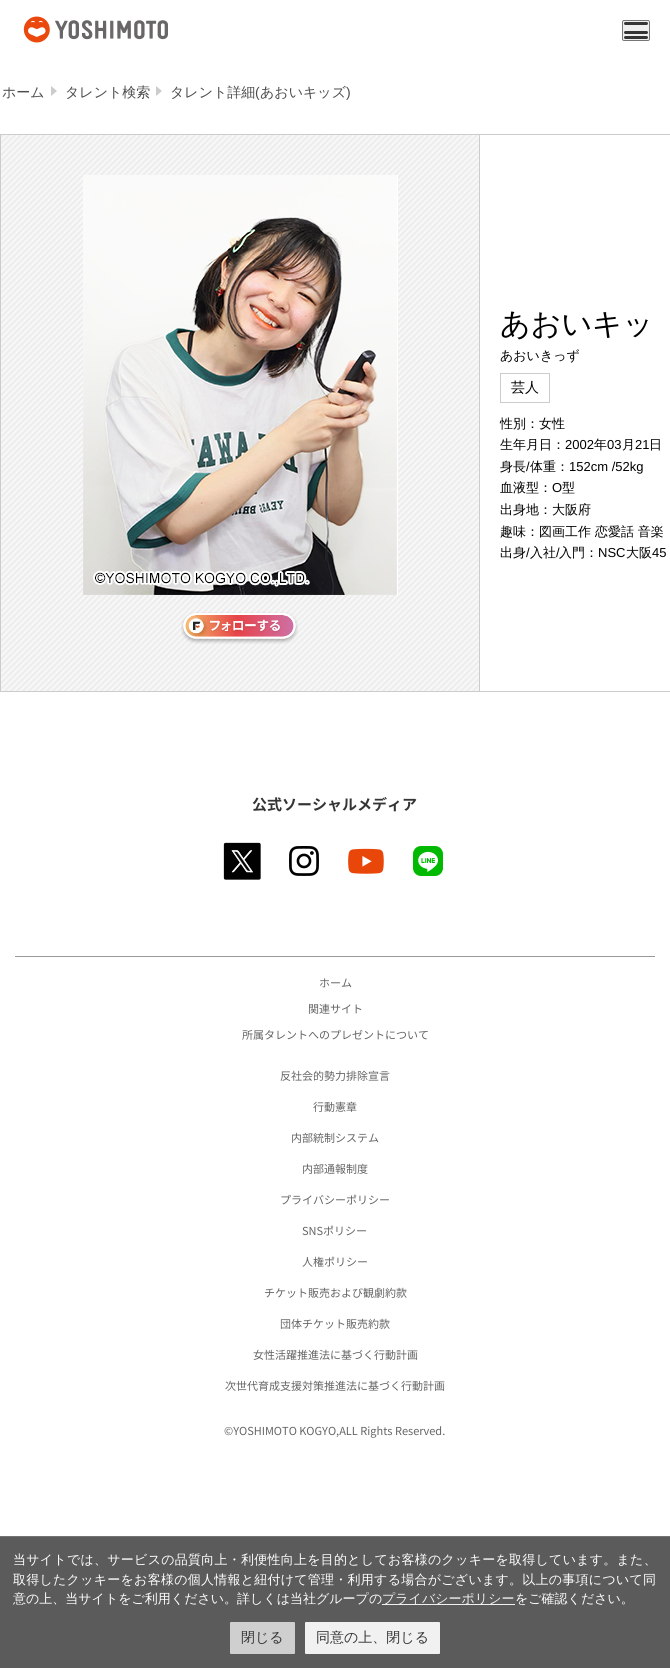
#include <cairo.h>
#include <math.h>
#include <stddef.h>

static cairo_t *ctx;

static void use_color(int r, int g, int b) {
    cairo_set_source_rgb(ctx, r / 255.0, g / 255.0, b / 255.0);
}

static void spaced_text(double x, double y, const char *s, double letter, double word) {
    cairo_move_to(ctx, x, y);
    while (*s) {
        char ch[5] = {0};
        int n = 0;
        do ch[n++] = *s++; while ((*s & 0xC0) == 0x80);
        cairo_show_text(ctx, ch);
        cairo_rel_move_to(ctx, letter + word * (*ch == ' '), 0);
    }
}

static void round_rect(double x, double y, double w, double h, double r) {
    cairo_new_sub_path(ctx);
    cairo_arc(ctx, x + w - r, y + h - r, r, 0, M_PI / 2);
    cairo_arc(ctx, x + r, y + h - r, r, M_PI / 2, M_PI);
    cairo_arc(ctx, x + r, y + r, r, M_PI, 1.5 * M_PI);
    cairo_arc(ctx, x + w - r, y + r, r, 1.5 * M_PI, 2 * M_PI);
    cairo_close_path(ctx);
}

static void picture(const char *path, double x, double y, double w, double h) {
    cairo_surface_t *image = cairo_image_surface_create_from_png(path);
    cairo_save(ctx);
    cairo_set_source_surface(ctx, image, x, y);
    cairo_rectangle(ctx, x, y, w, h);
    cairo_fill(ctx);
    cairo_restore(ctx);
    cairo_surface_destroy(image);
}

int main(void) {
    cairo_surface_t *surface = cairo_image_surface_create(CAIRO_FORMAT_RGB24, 670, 1668);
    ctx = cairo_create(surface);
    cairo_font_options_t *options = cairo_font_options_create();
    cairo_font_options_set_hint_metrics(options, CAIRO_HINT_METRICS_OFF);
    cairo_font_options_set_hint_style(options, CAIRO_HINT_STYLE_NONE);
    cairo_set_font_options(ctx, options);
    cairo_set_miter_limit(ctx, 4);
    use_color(255, 255, 255);
    cairo_paint(ctx);
    picture("img1.png", 23, 16, 145, 27);
    use_color(239, 239, 239);
    round_rect(622.5, 20.5, 27, 20, 1.5);
    cairo_fill_preserve(ctx);
    use_color(118, 118, 118);
    cairo_set_line_width(ctx, 1);
    cairo_stroke(ctx);
    use_color(53, 53, 53);
    round_rect(624, 22, 24, 3, 1.5);
    cairo_fill(ctx);
    round_rect(624, 31, 24, 3, 1.5);
    cairo_fill(ctx);
    round_rect(624, 36, 24, 3, 1.5);
    cairo_fill(ctx);
    cairo_select_font_face(ctx, "WenQuanYi Zen Hei Medium", CAIRO_FONT_SLANT_NORMAL, CAIRO_FONT_WEIGHT_NORMAL);
    cairo_set_font_size(ctx, 14);
    use_color(76, 76, 76);
    cairo_move_to(ctx, 2, 97);
    cairo_show_text(ctx, "ホーム");
    picture("img2.png", 51, 86, 6, 10);
    cairo_move_to(ctx, 65, 97);
    cairo_show_text(ctx, "タレント検索");
    picture("img2.png", 156, 86, 6, 10);
    cairo_move_to(ctx, 170, 97);
    cairo_show_text(ctx, "タレント詳細");
    cairo_select_font_face(ctx, "Liberation Sans", CAIRO_FONT_SLANT_NORMAL, CAIRO_FONT_WEIGHT_NORMAL);
    cairo_move_to(ctx, 255, 97);
    cairo_show_text(ctx, "(");
    cairo_select_font_face(ctx, "WenQuanYi Zen Hei Medium", CAIRO_FONT_SLANT_NORMAL, CAIRO_FONT_WEIGHT_NORMAL);
    cairo_move_to(ctx, 260, 97);
    cairo_show_text(ctx, "あおいキッズ");
    cairo_select_font_face(ctx, "Liberation Sans", CAIRO_FONT_SLANT_NORMAL, CAIRO_FONT_WEIGHT_NORMAL);
    cairo_move_to(ctx, 346, 97);
    cairo_show_text(ctx, ")");
    picture("img3.png", 1, 135, 478, 556);
    cairo_rectangle(ctx, 0.5, 134.5, 479, 557);
    use_color(204, 204, 204);
    cairo_stroke(ctx);
    picture("img4.png", 83, 175, 315, 420);
    picture("img5.png", 181, 612, 117, 32);
    cairo_rectangle(ctx, 480, 134, 190, 1);
    cairo_fill(ctx);
    cairo_rectangle(ctx, 480, 691, 190, 1);
    cairo_fill(ctx);
    cairo_select_font_face(ctx, "WenQuanYi Zen Hei Medium", CAIRO_FONT_SLANT_NORMAL, CAIRO_FONT_WEIGHT_NORMAL);
    cairo_set_font_size(ctx, 30);
    use_color(0, 0, 0);
    cairo_move_to(ctx, 500, 334);
    cairo_show_text(ctx, "あおいキッ");
    cairo_set_font_size(ctx, 13);
    cairo_move_to(ctx, 500, 360);
    cairo_show_text(ctx, "あおいきっず");
    cairo_rectangle(ctx, 500.5, 373.5, 49, 29);
    use_color(204, 204, 204);
    cairo_stroke(ctx);
    cairo_set_font_size(ctx, 14);
    use_color(0, 0, 0);
    cairo_move_to(ctx, 511, 392);
    cairo_show_text(ctx, "芸人");
    cairo_set_font_size(ctx, 13);
    cairo_move_to(ctx, 500, 428);
    cairo_show_text(ctx, "性別：女性");
    cairo_move_to(ctx, 500, 449);
    cairo_show_text(ctx, "生年月日：");
    cairo_select_font_face(ctx, "Liberation Sans", CAIRO_FONT_SLANT_NORMAL, CAIRO_FONT_WEIGHT_NORMAL);
    cairo_move_to(ctx, 565, 449);
    cairo_show_text(ctx, "2002");
    cairo_select_font_face(ctx, "WenQuanYi Zen Hei Medium", CAIRO_FONT_SLANT_NORMAL, CAIRO_FONT_WEIGHT_NORMAL);
    cairo_move_to(ctx, 594, 449);
    cairo_show_text(ctx, "年");
    cairo_select_font_face(ctx, "Liberation Sans", CAIRO_FONT_SLANT_NORMAL, CAIRO_FONT_WEIGHT_NORMAL);
    cairo_move_to(ctx, 607, 449);
    cairo_show_text(ctx, "03");
    cairo_select_font_face(ctx, "WenQuanYi Zen Hei Medium", CAIRO_FONT_SLANT_NORMAL, CAIRO_FONT_WEIGHT_NORMAL);
    cairo_move_to(ctx, 622, 449);
    cairo_show_text(ctx, "月");
    cairo_select_font_face(ctx, "Liberation Sans", CAIRO_FONT_SLANT_NORMAL, CAIRO_FONT_WEIGHT_NORMAL);
    cairo_move_to(ctx, 635, 449);
    cairo_show_text(ctx, "21");
    cairo_select_font_face(ctx, "WenQuanYi Zen Hei Medium", CAIRO_FONT_SLANT_NORMAL, CAIRO_FONT_WEIGHT_NORMAL);
    cairo_move_to(ctx, 649, 449);
    cairo_show_text(ctx, "日");
    cairo_move_to(ctx, 500, 471);
    cairo_show_text(ctx, "身長");
    cairo_select_font_face(ctx, "Liberation Sans", CAIRO_FONT_SLANT_NORMAL, CAIRO_FONT_WEIGHT_NORMAL);
    cairo_move_to(ctx, 526, 471);
    cairo_show_text(ctx, "/");
    cairo_select_font_face(ctx, "WenQuanYi Zen Hei Medium", CAIRO_FONT_SLANT_NORMAL, CAIRO_FONT_WEIGHT_NORMAL);
    cairo_move_to(ctx, 530, 471);
    cairo_show_text(ctx, "体重：");
    cairo_select_font_face(ctx, "Liberation Sans", CAIRO_FONT_SLANT_NORMAL, CAIRO_FONT_WEIGHT_NORMAL);
    cairo_move_to(ctx, 569, 471);
    cairo_show_text(ctx, "152cm /52kg");
    cairo_select_font_face(ctx, "WenQuanYi Zen Hei Medium", CAIRO_FONT_SLANT_NORMAL, CAIRO_FONT_WEIGHT_NORMAL);
    cairo_move_to(ctx, 500, 492);
    cairo_show_text(ctx, "血液型：");
    cairo_select_font_face(ctx, "Liberation Sans", CAIRO_FONT_SLANT_NORMAL, CAIRO_FONT_WEIGHT_NORMAL);
    cairo_move_to(ctx, 552, 492);
    cairo_show_text(ctx, "O");
    cairo_select_font_face(ctx, "WenQuanYi Zen Hei Medium", CAIRO_FONT_SLANT_NORMAL, CAIRO_FONT_WEIGHT_NORMAL);
    cairo_move_to(ctx, 562, 492);
    cairo_show_text(ctx, "型");
    cairo_move_to(ctx, 500, 514);
    cairo_show_text(ctx, "出身地：大阪府");
    cairo_move_to(ctx, 500, 536);
    cairo_show_text(ctx, "趣味：図画工作 恋愛話 音楽");
    cairo_move_to(ctx, 500, 557);
    cairo_show_text(ctx, "出身");
    cairo_select_font_face(ctx, "Liberation Sans", CAIRO_FONT_SLANT_NORMAL, CAIRO_FONT_WEIGHT_NORMAL);
    cairo_move_to(ctx, 526, 557);
    cairo_show_text(ctx, "/");
    cairo_select_font_face(ctx, "WenQuanYi Zen Hei Medium", CAIRO_FONT_SLANT_NORMAL, CAIRO_FONT_WEIGHT_NORMAL);
    cairo_move_to(ctx, 530, 557);
    cairo_show_text(ctx, "入社");
    cairo_select_font_face(ctx, "Liberation Sans", CAIRO_FONT_SLANT_NORMAL, CAIRO_FONT_WEIGHT_NORMAL);
    cairo_move_to(ctx, 556, 557);
    cairo_show_text(ctx, "/");
    cairo_select_font_face(ctx, "WenQuanYi Zen Hei Medium", CAIRO_FONT_SLANT_NORMAL, CAIRO_FONT_WEIGHT_NORMAL);
    cairo_move_to(ctx, 559, 557);
    cairo_show_text(ctx, "入門：");
    cairo_select_font_face(ctx, "Liberation Sans", CAIRO_FONT_SLANT_NORMAL, CAIRO_FONT_WEIGHT_NORMAL);
    cairo_move_to(ctx, 598, 557);
    cairo_show_text(ctx, "NSC");
    cairo_select_font_face(ctx, "WenQuanYi Zen Hei Medium", CAIRO_FONT_SLANT_NORMAL, CAIRO_FONT_WEIGHT_NORMAL);
    cairo_move_to(ctx, 626, 557);
    cairo_show_text(ctx, "大阪");
    cairo_select_font_face(ctx, "Liberation Sans", CAIRO_FONT_SLANT_NORMAL, CAIRO_FONT_WEIGHT_NORMAL);
    cairo_move_to(ctx, 652, 557);
    cairo_show_text(ctx, "45");
    cairo_select_font_face(ctx, "Noto Sans JP", CAIRO_FONT_SLANT_NORMAL, CAIRO_FONT_WEIGHT_BOLD);
    cairo_set_font_size(ctx, 15);
    use_color(53, 53, 53);
    cairo_move_to(ctx, 252, 810);
    cairo_show_text(ctx, "公式ソーシャルメディア");
    picture("img6.png", 223, 842, 38, 38);
    picture("img7.png", 289, 846, 30, 30);
    picture("img8.png", 348, 848, 36, 26);
    picture("img9.png", 413, 846, 30, 30);
    use_color(153, 153, 153);
    cairo_rectangle(ctx, 15, 956, 640, 1);
    cairo_fill(ctx);
    cairo_select_font_face(ctx, "Noto Sans JP", CAIRO_FONT_SLANT_NORMAL, CAIRO_FONT_WEIGHT_NORMAL);
    cairo_set_font_size(ctx, 11);
    use_color(100, 100, 100);
    cairo_move_to(ctx, 319, 987);
    cairo_show_text(ctx, "ホーム");
    cairo_move_to(ctx, 308, 1013);
    cairo_show_text(ctx, "関連サイト");
    cairo_move_to(ctx, 242, 1039);
    cairo_show_text(ctx, "所属タレントへのプレゼントについて");
    cairo_move_to(ctx, 280, 1080);
    cairo_show_text(ctx, "反社会的勢力排除宣言");
    cairo_move_to(ctx, 313, 1111);
    cairo_show_text(ctx, "行動憲章");
    cairo_move_to(ctx, 291, 1142);
    cairo_show_text(ctx, "内部統制システム");
    cairo_move_to(ctx, 302, 1173);
    cairo_show_text(ctx, "内部通報制度");
    cairo_move_to(ctx, 280, 1204);
    cairo_show_text(ctx, "プライバシーポリシー");
    cairo_move_to(ctx, 302, 1235);
    cairo_show_text(ctx, "SNSポリシー");
    cairo_move_to(ctx, 302, 1266);
    cairo_show_text(ctx, "人権ポリシー");
    cairo_move_to(ctx, 264, 1297);
    cairo_show_text(ctx, "チケット販売および観劇約款");
    cairo_move_to(ctx, 280, 1328);
    cairo_show_text(ctx, "団体チケット販売約款");
    cairo_move_to(ctx, 253, 1359);
    cairo_show_text(ctx, "女性活躍推進法に基づく行動計画");
    cairo_move_to(ctx, 225, 1390);
    cairo_show_text(ctx, "次世代育成支援対策推進法に基づく行動計画");
    cairo_move_to(ctx, 224, 1435);
    cairo_show_text(ctx, "©YOSHIMOTO KOGYO,ALL Rights Reserved.");
    use_color(91, 91, 91);
    cairo_rectangle(ctx, 0, 1537, 670, 131);
    cairo_fill(ctx);
    use_color(116, 116, 116);
    cairo_rectangle(ctx, 0, 1536, 670, 1);
    cairo_fill(ctx);
    cairo_select_font_face(ctx, "WenQuanYi Zen Hei Medium", CAIRO_FONT_SLANT_NORMAL, CAIRO_FONT_WEIGHT_NORMAL);
    cairo_set_font_size(ctx, 13);
    use_color(255, 255, 255);
    spaced_text(13, 1564, "当サイトでは、サービスの品質向上・利便性向上を目的としてお客様のクッキーを取得しています。また、", 0.25, 0);
    spaced_text(13, 1584, "取得したクッキーをお客様の個人情報と紐付けて管理・利用する場合がございます。以上の事項について同", 0.25, 0);
    cairo_move_to(ctx, 13, 1603);
    cairo_show_text(ctx, "意の上、当サイトをご利用ください。詳しくは当社グループの");
    use_color(240, 240, 240);
    cairo_rectangle(ctx, 382, 1604, 133, 1);
    cairo_fill(ctx);
    cairo_move_to(ctx, 382, 1603);
    cairo_show_text(ctx, "プライバシーポリシー");
    use_color(255, 255, 255);
    cairo_move_to(ctx, 515, 1603);
    cairo_show_text(ctx, "をご確認ください。");
    use_color(207, 207, 207);
    round_rect(230, 1622, 65, 32, 1);
    cairo_fill(ctx);
    cairo_set_font_size(ctx, 14);
    use_color(53, 53, 53);
    cairo_move_to(ctx, 241, 1642);
    cairo_show_text(ctx, "閉じる");
    use_color(241, 241, 241);
    round_rect(305, 1622, 135, 32, 1);
    cairo_fill(ctx);
    use_color(53, 53, 53);
    cairo_move_to(ctx, 316, 1642);
    cairo_show_text(ctx, "同意の上、閉じる");
    cairo_surface_write_to_png(surface, "result.png");
    cairo_font_options_destroy(options);
    cairo_destroy(ctx);
    cairo_surface_destroy(surface);
    return 0;
}
